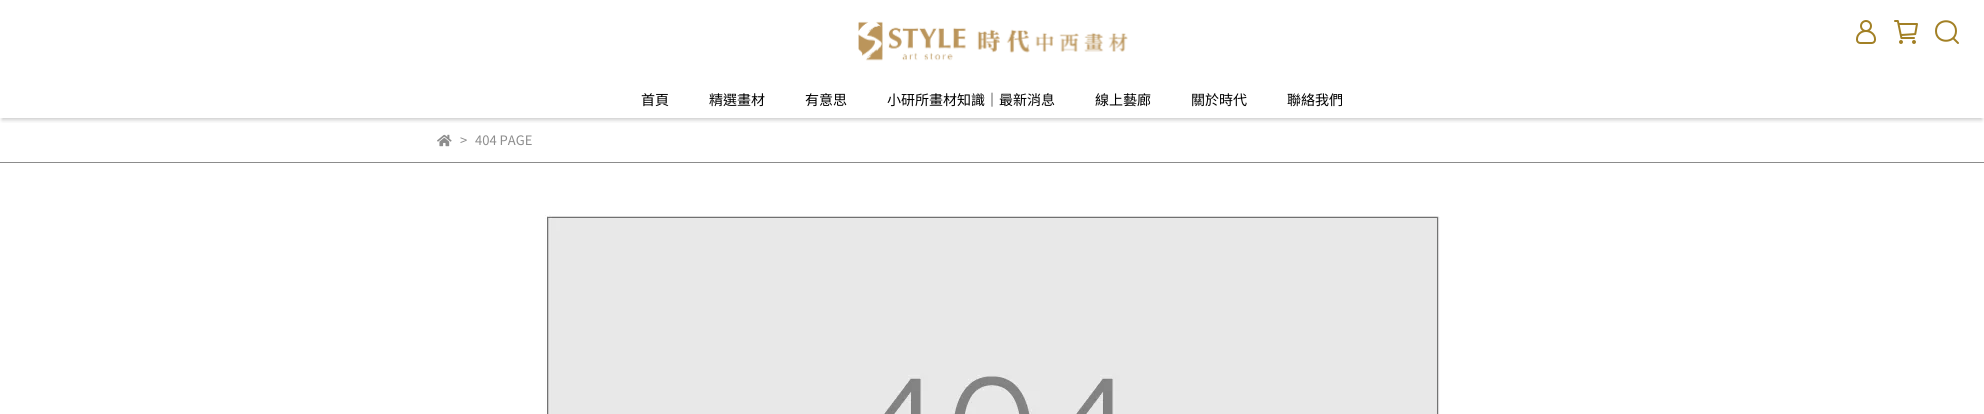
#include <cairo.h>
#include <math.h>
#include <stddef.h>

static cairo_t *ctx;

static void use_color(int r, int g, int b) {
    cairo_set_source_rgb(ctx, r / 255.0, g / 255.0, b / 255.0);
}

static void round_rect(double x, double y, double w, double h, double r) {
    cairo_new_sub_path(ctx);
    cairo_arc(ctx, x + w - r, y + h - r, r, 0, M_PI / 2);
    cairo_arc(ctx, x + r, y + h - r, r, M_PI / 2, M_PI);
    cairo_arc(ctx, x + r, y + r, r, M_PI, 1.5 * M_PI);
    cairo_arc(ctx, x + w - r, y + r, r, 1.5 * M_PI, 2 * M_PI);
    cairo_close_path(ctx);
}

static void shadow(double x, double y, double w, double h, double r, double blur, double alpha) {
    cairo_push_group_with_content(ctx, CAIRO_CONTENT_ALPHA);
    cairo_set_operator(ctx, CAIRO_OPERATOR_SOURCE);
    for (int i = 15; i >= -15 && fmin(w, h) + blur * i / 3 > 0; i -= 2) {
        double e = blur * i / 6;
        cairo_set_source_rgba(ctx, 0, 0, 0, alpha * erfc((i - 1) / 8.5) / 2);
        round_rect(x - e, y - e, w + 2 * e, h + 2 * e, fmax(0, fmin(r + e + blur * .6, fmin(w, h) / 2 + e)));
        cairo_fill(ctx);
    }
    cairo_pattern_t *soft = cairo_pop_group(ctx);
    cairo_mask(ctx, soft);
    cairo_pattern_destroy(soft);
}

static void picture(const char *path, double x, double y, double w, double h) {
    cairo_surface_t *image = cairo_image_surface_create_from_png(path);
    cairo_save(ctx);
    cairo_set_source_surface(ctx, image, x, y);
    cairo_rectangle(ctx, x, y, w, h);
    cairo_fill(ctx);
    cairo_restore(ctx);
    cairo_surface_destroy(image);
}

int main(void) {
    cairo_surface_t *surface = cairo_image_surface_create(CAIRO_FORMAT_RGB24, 1984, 414);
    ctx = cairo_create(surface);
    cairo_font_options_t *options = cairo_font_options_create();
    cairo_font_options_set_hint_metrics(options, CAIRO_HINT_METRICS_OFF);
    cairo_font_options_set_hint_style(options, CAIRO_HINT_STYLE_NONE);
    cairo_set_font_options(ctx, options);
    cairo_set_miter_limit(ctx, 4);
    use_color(255, 255, 255);
    cairo_paint(ctx);
    picture("img1.png", 858, 21, 270, 40);
    picture("img2.png", 1856, 20, 20, 24);
    picture("img3.png", 1894, 20, 24, 24);
    cairo_new_path(ctx);
    cairo_move_to(ctx, 1956, 31);
    cairo_curve_to(ctx, 1956, 44, 1936, 44, 1936, 31);
    cairo_curve_to(ctx, 1936, 18, 1956, 18, 1956, 31);
    cairo_close_path(ctx);
    cairo_move_to(ctx, 1954, 39);
    cairo_line_to(ctx, 1958, 43);
    use_color(162, 128, 37);
    cairo_set_line_cap(ctx, CAIRO_LINE_CAP_ROUND);
    cairo_set_line_join(ctx, CAIRO_LINE_JOIN_ROUND);
    cairo_stroke(ctx);
    cairo_save(ctx);
    cairo_rectangle(ctx, 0, 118, 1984, 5);
    cairo_clip(ctx);
    use_color(0, 0, 0);
    shadow(2, 87, 1980, 33, 0, 2, 0.2);
    cairo_restore(ctx);
    cairo_select_font_face(ctx, "Noto Sans TC", CAIRO_FONT_SLANT_NORMAL, CAIRO_FONT_WEIGHT_NORMAL);
    cairo_set_font_size(ctx, 14);
    use_color(0, 0, 0);
    cairo_move_to(ctx, 641, 105);
    cairo_show_text(ctx, "首頁");
    cairo_move_to(ctx, 709, 105);
    cairo_show_text(ctx, "精選畫材");
    cairo_move_to(ctx, 805, 105);
    cairo_show_text(ctx, "有意思");
    cairo_move_to(ctx, 887, 105);
    cairo_show_text(ctx, "小研所畫材知識｜最新消息");
    cairo_move_to(ctx, 1095, 105);
    cairo_show_text(ctx, "線上藝廊");
    cairo_move_to(ctx, 1191, 105);
    cairo_show_text(ctx, "關於時代");
    cairo_move_to(ctx, 1287, 105);
    cairo_show_text(ctx, "聯絡我們");
    use_color(140, 140, 140);
    cairo_rectangle(ctx, 0, 162, 1984, 1);
    cairo_fill(ctx);
    picture("img4.png", 437, 134, 15, 13);
    cairo_set_font_size(ctx, 13);
    use_color(141, 141, 141);
    cairo_move_to(ctx, 460, 145);
    cairo_show_text(ctx, ">");
    cairo_move_to(ctx, 475, 145);
    cairo_show_text(ctx, "404 PAGE");
    picture("img5.png", 545, 215, 895, 199);
    cairo_surface_write_to_png(surface, "result.png");
    cairo_font_options_destroy(options);
    cairo_destroy(ctx);
    cairo_surface_destroy(surface);
    return 0;
}
